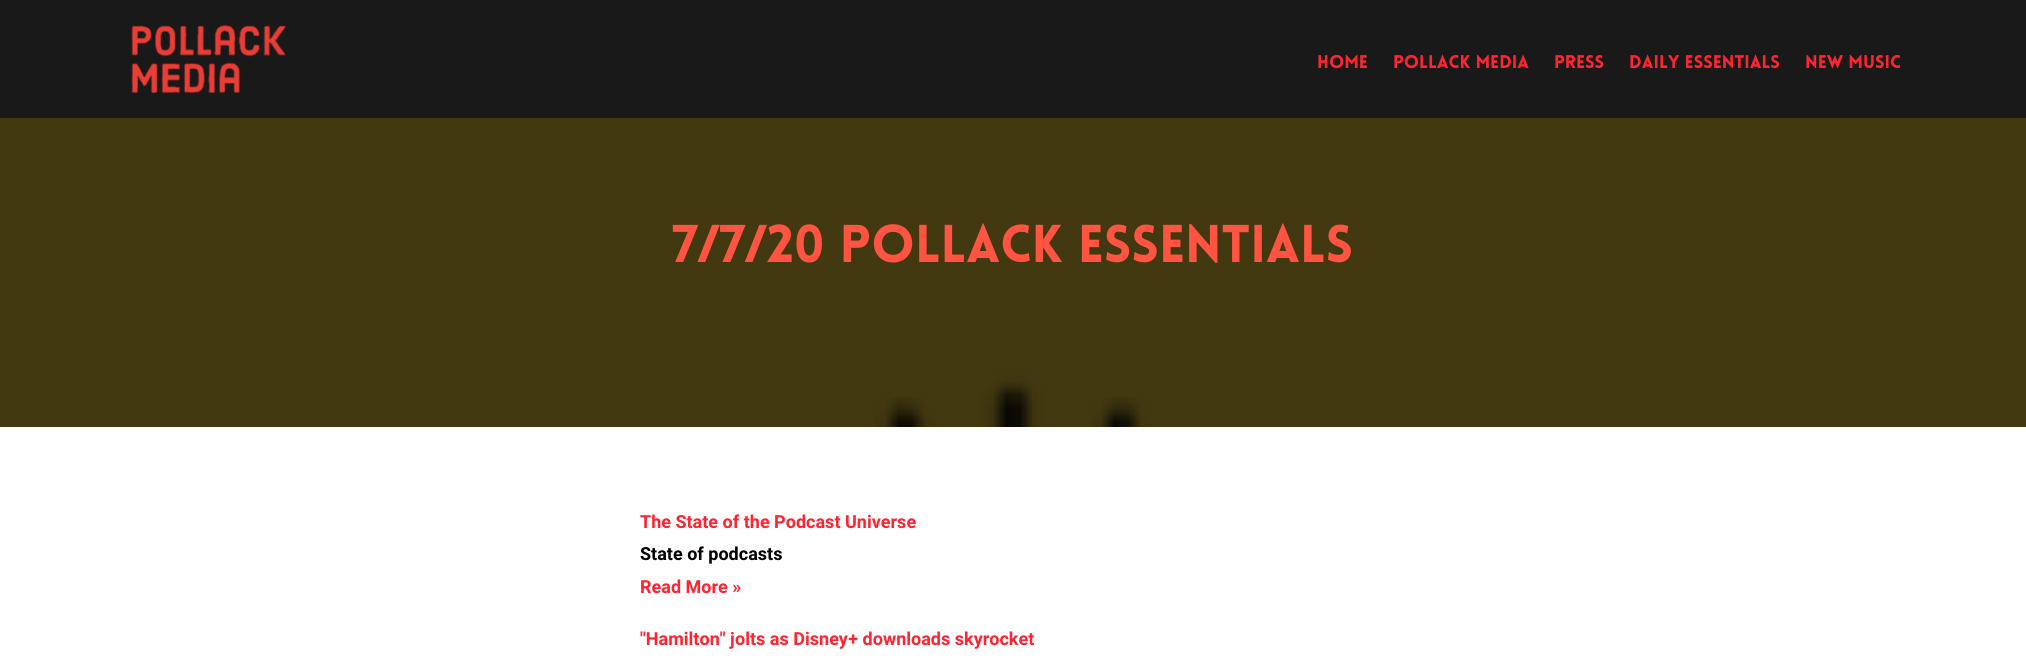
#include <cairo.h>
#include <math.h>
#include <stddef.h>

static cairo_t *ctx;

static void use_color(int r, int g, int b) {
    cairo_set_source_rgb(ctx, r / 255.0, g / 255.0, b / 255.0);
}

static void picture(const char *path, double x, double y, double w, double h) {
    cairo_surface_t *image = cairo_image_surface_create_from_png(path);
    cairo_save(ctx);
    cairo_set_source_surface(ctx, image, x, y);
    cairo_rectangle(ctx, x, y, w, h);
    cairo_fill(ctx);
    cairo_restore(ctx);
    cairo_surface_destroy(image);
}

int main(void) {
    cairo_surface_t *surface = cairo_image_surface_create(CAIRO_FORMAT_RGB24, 2026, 658);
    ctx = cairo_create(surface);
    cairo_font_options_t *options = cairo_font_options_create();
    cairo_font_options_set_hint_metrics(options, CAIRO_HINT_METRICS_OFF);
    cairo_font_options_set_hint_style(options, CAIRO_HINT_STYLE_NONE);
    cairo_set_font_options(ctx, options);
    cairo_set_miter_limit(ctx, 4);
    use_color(255, 255, 255);
    cairo_paint(ctx);
    use_color(25, 25, 25);
    cairo_rectangle(ctx, 0, 0, 2026, 118);
    cairo_fill(ctx);
    picture("img1.png", 131, 24, 155, 70);
    cairo_select_font_face(ctx, "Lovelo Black", CAIRO_FONT_SLANT_NORMAL, CAIRO_FONT_WEIGHT_NORMAL);
    cairo_set_font_size(ctx, 18);
    use_color(252, 37, 49);
    cairo_move_to(ctx, 1317, 68);
    cairo_show_text(ctx, "Home");
    cairo_move_to(ctx, 1393, 68);
    cairo_show_text(ctx, "Pollack Media");
    cairo_move_to(ctx, 1554, 68);
    cairo_show_text(ctx, "Press");
    cairo_move_to(ctx, 1629, 68);
    cairo_show_text(ctx, "Daily Essentials");
    cairo_move_to(ctx, 1805, 68);
    cairo_show_text(ctx, "New Music");
    picture("img2.png", 0, 118, 2026, 309);
    cairo_set_font_size(ctx, 52);
    use_color(255, 84, 65);
    cairo_move_to(ctx, 672, 262);
    cairo_show_text(ctx, "7/7/20 POLLACK ESSENTIALS");
    cairo_select_font_face(ctx, "Heebo", CAIRO_FONT_SLANT_NORMAL, CAIRO_FONT_WEIGHT_BOLD);
    cairo_set_font_size(ctx, 18);
    use_color(252, 37, 49);
    cairo_move_to(ctx, 640, 528);
    cairo_show_text(ctx, "The State of the Podcast Universe");
    use_color(0, 0, 0);
    cairo_move_to(ctx, 640, 560);
    cairo_show_text(ctx, "State of podcasts");
    use_color(252, 37, 49);
    cairo_move_to(ctx, 640, 593);
    cairo_show_text(ctx, "Read More »");
    cairo_move_to(ctx, 640, 645);
    cairo_show_text(ctx, "\"Hamilton\" jolts as Disney+ downloads skyrocket");
    cairo_surface_write_to_png(surface, "result.png");
    cairo_font_options_destroy(options);
    cairo_destroy(ctx);
    cairo_surface_destroy(surface);
    return 0;
}
